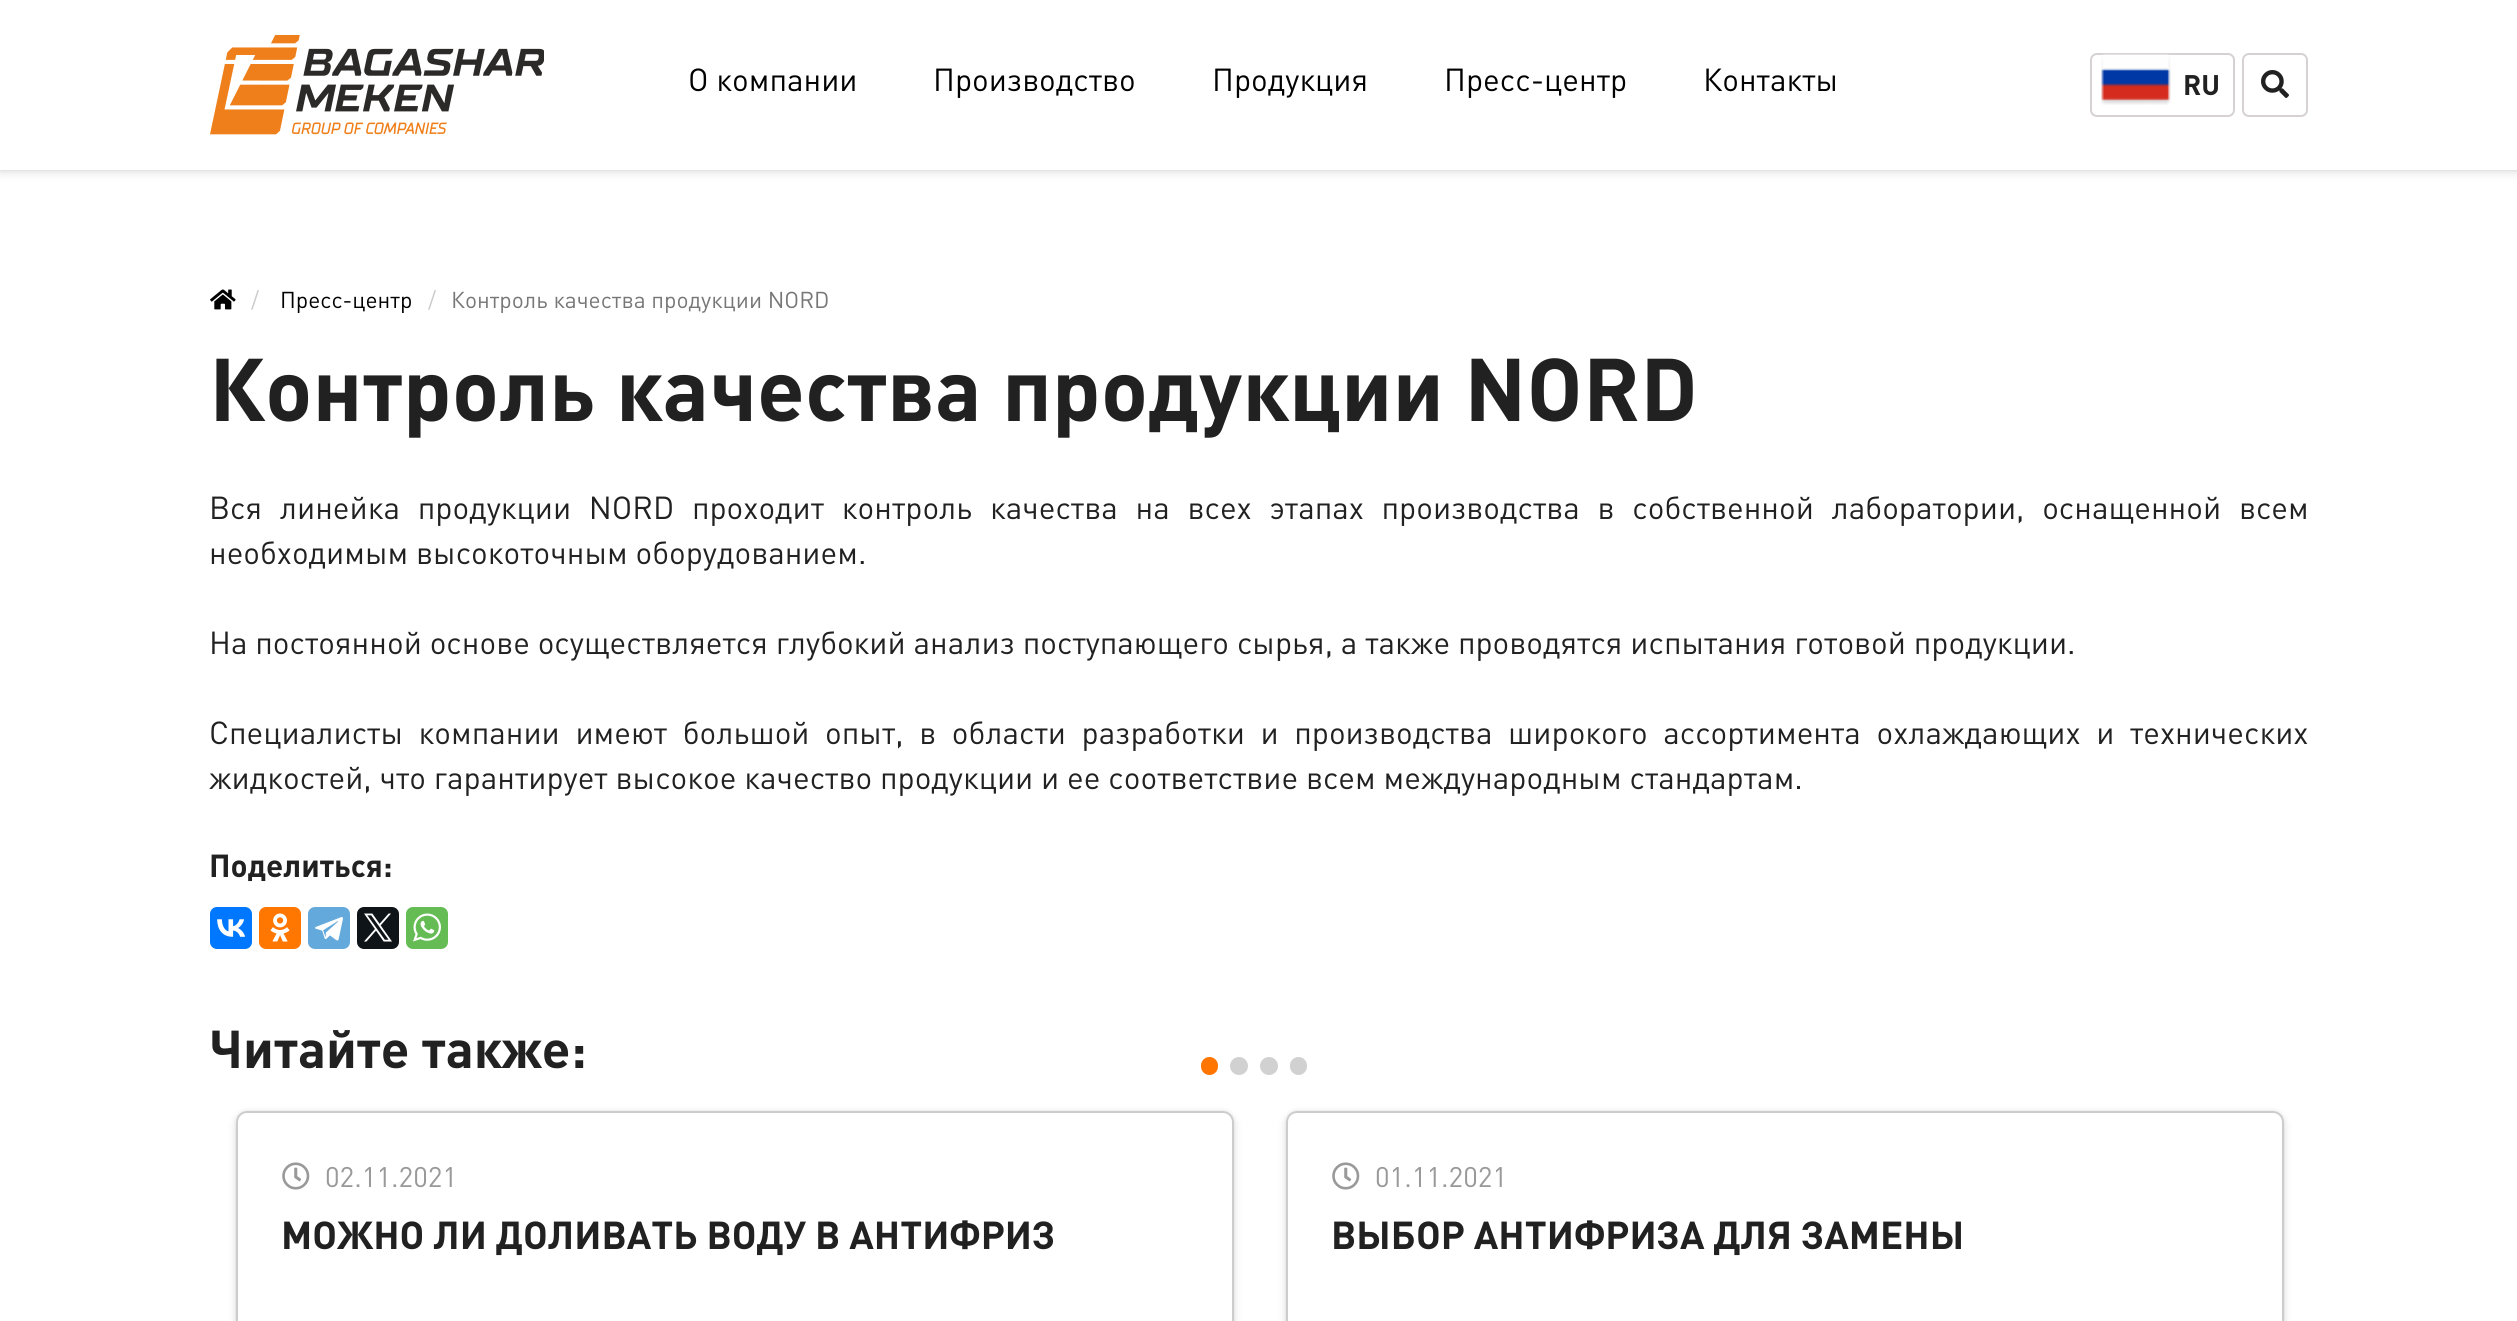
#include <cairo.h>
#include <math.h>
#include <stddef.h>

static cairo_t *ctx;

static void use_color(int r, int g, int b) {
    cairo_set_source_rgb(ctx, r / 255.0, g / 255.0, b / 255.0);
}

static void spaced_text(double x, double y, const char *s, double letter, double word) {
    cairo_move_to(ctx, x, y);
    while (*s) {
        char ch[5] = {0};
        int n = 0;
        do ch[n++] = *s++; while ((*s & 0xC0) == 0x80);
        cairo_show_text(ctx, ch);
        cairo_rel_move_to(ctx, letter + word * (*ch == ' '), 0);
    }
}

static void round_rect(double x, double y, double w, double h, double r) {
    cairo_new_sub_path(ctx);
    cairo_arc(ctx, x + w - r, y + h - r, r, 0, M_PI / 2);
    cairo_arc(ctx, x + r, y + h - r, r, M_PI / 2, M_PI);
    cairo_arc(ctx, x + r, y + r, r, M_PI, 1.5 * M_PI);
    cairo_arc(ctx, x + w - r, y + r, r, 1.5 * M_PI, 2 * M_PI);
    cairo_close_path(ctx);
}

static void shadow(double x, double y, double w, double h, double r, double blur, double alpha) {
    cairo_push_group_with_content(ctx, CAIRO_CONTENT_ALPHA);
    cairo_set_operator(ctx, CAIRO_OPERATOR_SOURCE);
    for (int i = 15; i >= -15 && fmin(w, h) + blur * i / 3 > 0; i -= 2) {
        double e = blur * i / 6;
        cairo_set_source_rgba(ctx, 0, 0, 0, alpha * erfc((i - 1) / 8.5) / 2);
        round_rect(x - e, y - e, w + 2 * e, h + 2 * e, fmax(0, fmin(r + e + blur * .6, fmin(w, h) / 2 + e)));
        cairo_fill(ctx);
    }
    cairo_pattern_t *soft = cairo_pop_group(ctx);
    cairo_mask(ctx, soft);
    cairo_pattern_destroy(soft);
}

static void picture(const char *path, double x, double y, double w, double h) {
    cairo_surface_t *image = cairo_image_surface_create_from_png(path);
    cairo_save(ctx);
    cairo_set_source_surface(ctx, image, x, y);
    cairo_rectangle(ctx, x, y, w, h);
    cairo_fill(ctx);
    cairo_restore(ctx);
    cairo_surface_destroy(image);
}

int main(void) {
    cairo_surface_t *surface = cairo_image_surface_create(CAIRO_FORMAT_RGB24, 2517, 1321);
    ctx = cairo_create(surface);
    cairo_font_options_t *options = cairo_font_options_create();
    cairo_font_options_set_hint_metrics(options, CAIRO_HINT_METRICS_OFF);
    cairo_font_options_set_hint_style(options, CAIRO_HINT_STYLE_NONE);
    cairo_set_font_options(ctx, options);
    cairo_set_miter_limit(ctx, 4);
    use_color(255, 255, 255);
    cairo_paint(ctx);
    use_color(0, 0, 0);
    shadow(0, 4, 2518, 169, 0, 5, 0.1);
    shadow(0, 0, 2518, 170, 0, 2, 0.1);
    use_color(255, 255, 255);
    cairo_rectangle(ctx, 0, 0, 2517, 170);
    cairo_fill(ctx);
    picture("img1.png", 210, 35, 334, 100);
    cairo_select_font_face(ctx, "DIN", CAIRO_FONT_SLANT_NORMAL, CAIRO_FONT_WEIGHT_NORMAL);
    cairo_set_font_size(ctx, 31.5);
    use_color(0, 0, 0);
    cairo_move_to(ctx, 688, 91);
    cairo_show_text(ctx, "О компании");
    cairo_move_to(ctx, 933, 91);
    cairo_show_text(ctx, "Производство");
    cairo_move_to(ctx, 1212, 91);
    cairo_show_text(ctx, "Продукция");
    cairo_move_to(ctx, 1444, 91);
    cairo_show_text(ctx, "Пресс-центр");
    cairo_move_to(ctx, 1703, 91);
    cairo_show_text(ctx, "Контакты");
    round_rect(2091, 54, 143, 62, 6);
    use_color(215, 210, 210);
    cairo_stroke(ctx);
    picture("img2.png", 2101, 54, 70, 51);
    cairo_select_font_face(ctx, "DIN", CAIRO_FONT_SLANT_NORMAL, CAIRO_FONT_WEIGHT_BOLD);
    cairo_set_font_size(ctx, 28);
    use_color(33, 33, 33);
    cairo_move_to(ctx, 2183, 95);
    cairo_show_text(ctx, "RU");
    round_rect(2243, 54, 64, 62, 6);
    use_color(215, 210, 210);
    cairo_stroke(ctx);
    picture("img3.png", 2261, 70, 28, 28);
    picture("img4.png", 210, 289, 26, 21);
    cairo_select_font_face(ctx, "DIN", CAIRO_FONT_SLANT_NORMAL, CAIRO_FONT_WEIGHT_NORMAL);
    cairo_set_font_size(ctx, 22.75);
    use_color(204, 204, 204);
    cairo_move_to(ctx, 251, 308);
    cairo_show_text(ctx, "/");
    use_color(0, 0, 0);
    cairo_move_to(ctx, 280, 308);
    cairo_show_text(ctx, "Пресс-центр");
    use_color(204, 204, 204);
    cairo_move_to(ctx, 428, 308);
    cairo_show_text(ctx, "/");
    use_color(119, 119, 119);
    cairo_move_to(ctx, 451, 308);
    cairo_show_text(ctx, "Контроль качества продукции NORD");
    cairo_select_font_face(ctx, "DIN", CAIRO_FONT_SLANT_NORMAL, CAIRO_FONT_WEIGHT_BOLD);
    cairo_set_font_size(ctx, 87.5);
    use_color(33, 33, 33);
    cairo_move_to(ctx, 209, 421);
    cairo_show_text(ctx, "Контроль качества продукции NORD");
    cairo_select_font_face(ctx, "DIN", CAIRO_FONT_SLANT_NORMAL, CAIRO_FONT_WEIGHT_NORMAL);
    cairo_set_font_size(ctx, 31.5);
    spaced_text(209, 519, "Вся линейка продукции NORD проходит контроль качества на всех этапах производства в собственной лаборатории, оснащенной всем", 0, 9.9);
    cairo_move_to(ctx, 209, 564);
    cairo_show_text(ctx, "необходимым высокоточным оборудованием.");
    cairo_move_to(ctx, 209, 654);
    cairo_show_text(ctx, "На постоянной основе осуществляется глубокий анализ поступающего сырья, а также проводятся испытания готовой продукции.");
    spaced_text(209, 744, "Специалисты компании имеют большой опыт, в области разработки и производства широкого ассортимента охлаждающих и технических", 0, 7.75);
    cairo_move_to(ctx, 209, 789);
    cairo_show_text(ctx, "жидкостей, что гарантирует высокое качество продукции и ее соответствие всем международным стандартам.");
    cairo_select_font_face(ctx, "DIN", CAIRO_FONT_SLANT_NORMAL, CAIRO_FONT_WEIGHT_BOLD);
    cairo_move_to(ctx, 209, 877);
    cairo_show_text(ctx, "Поделиться:");
    use_color(0, 119, 255);
    round_rect(210, 907, 42, 42, 7);
    cairo_fill(ctx);
    picture("img5.png", 217, 919, 29, 18);
    use_color(255, 119, 0);
    round_rect(259, 907, 42, 42, 7);
    cairo_fill(ctx);
    picture("img6.png", 270, 913, 20, 29);
    use_color(100, 169, 220);
    round_rect(308, 907, 42, 42, 7);
    cairo_fill(ctx);
    picture("img7.png", 315, 917, 28, 24);
    use_color(15, 20, 25);
    round_rect(357, 907, 42, 42, 7);
    cairo_fill(ctx);
    picture("img8.png", 364, 913, 28, 29);
    use_color(101, 188, 84);
    round_rect(406, 907, 42, 42, 7);
    cairo_fill(ctx);
    picture("img9.png", 413, 913, 28, 29);
    cairo_set_font_size(ctx, 52.5);
    use_color(33, 33, 33);
    cairo_move_to(ctx, 209, 1068);
    cairo_show_text(ctx, "Читайте также:");
    use_color(255, 117, 0);
    round_rect(1201, 1057, 17, 18, 8.5);
    cairo_fill(ctx);
    use_color(209, 209, 209);
    cairo_arc(ctx, 1239, 1066, 9, 0, 2 * M_PI);
    cairo_fill(ctx);
    cairo_arc(ctx, 1269, 1066, 9, 0, 2 * M_PI);
    cairo_fill(ctx);
    round_rect(1290, 1057, 17, 18, 8.5);
    cairo_fill(ctx);
    cairo_save(ctx);
    cairo_set_fill_rule(ctx, CAIRO_FILL_RULE_EVEN_ODD);
    cairo_new_path(ctx);
    cairo_move_to(ctx, 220, 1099);
    cairo_line_to(ctx, 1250, 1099);
    cairo_line_to(ctx, 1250, 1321);
    cairo_line_to(ctx, 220, 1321);
    cairo_close_path(ctx);
    cairo_move_to(ctx, 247, 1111);
    cairo_line_to(ctx, 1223, 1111);
    cairo_curve_to(ctx, 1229, 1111, 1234, 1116, 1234, 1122);
    cairo_line_to(ctx, 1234, 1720);
    cairo_curve_to(ctx, 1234, 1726, 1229, 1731, 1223, 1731);
    cairo_line_to(ctx, 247, 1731);
    cairo_curve_to(ctx, 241, 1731, 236, 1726, 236, 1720);
    cairo_line_to(ctx, 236, 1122);
    cairo_curve_to(ctx, 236, 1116, 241, 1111, 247, 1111);
    cairo_close_path(ctx);
    cairo_clip(ctx);
    use_color(0, 0, 0);
    shadow(236, 1115, 998, 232, 11, 5, 0.1);
    cairo_restore(ctx);
    cairo_save(ctx);
    cairo_set_fill_rule(ctx, CAIRO_FILL_RULE_EVEN_ODD);
    cairo_new_path(ctx);
    cairo_move_to(ctx, 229, 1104);
    cairo_line_to(ctx, 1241, 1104);
    cairo_line_to(ctx, 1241, 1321);
    cairo_line_to(ctx, 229, 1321);
    cairo_close_path(ctx);
    cairo_move_to(ctx, 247, 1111);
    cairo_line_to(ctx, 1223, 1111);
    cairo_curve_to(ctx, 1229, 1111, 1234, 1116, 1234, 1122);
    cairo_line_to(ctx, 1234, 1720);
    cairo_curve_to(ctx, 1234, 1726, 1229, 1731, 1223, 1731);
    cairo_line_to(ctx, 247, 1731);
    cairo_curve_to(ctx, 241, 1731, 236, 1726, 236, 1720);
    cairo_line_to(ctx, 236, 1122);
    cairo_curve_to(ctx, 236, 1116, 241, 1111, 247, 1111);
    cairo_close_path(ctx);
    cairo_clip(ctx);
    use_color(0, 0, 0);
    shadow(236, 1111, 998, 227, 11, 2, 0.1);
    cairo_restore(ctx);
    round_rect(237, 1112, 996, 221, 10);
    use_color(204, 204, 204);
    cairo_stroke(ctx);
    picture("img10.png", 282, 1162, 28, 28);
    cairo_select_font_face(ctx, "DIN", CAIRO_FONT_SLANT_NORMAL, CAIRO_FONT_WEIGHT_NORMAL);
    cairo_set_font_size(ctx, 28);
    use_color(153, 153, 153);
    cairo_move_to(ctx, 325, 1187);
    cairo_show_text(ctx, "02.11.2021");
    cairo_select_font_face(ctx, "DIN", CAIRO_FONT_SLANT_NORMAL, CAIRO_FONT_WEIGHT_BOLD);
    cairo_set_font_size(ctx, 38.5);
    use_color(33, 33, 33);
    cairo_move_to(ctx, 281, 1249);
    cairo_show_text(ctx, "МОЖНО ЛИ ДОЛИВАТЬ ВОДУ В АНТИФРИЗ");
    cairo_save(ctx);
    cairo_set_fill_rule(ctx, CAIRO_FILL_RULE_EVEN_ODD);
    cairo_new_path(ctx);
    cairo_move_to(ctx, 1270, 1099);
    cairo_line_to(ctx, 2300, 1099);
    cairo_line_to(ctx, 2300, 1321);
    cairo_line_to(ctx, 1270, 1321);
    cairo_close_path(ctx);
    cairo_move_to(ctx, 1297, 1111);
    cairo_line_to(ctx, 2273, 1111);
    cairo_curve_to(ctx, 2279, 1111, 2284, 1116, 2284, 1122);
    cairo_line_to(ctx, 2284, 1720);
    cairo_curve_to(ctx, 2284, 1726, 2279, 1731, 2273, 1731);
    cairo_line_to(ctx, 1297, 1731);
    cairo_curve_to(ctx, 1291, 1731, 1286, 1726, 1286, 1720);
    cairo_line_to(ctx, 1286, 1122);
    cairo_curve_to(ctx, 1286, 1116, 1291, 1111, 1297, 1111);
    cairo_close_path(ctx);
    cairo_clip(ctx);
    use_color(0, 0, 0);
    shadow(1286, 1115, 998, 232, 11, 5, 0.1);
    cairo_restore(ctx);
    cairo_save(ctx);
    cairo_set_fill_rule(ctx, CAIRO_FILL_RULE_EVEN_ODD);
    cairo_new_path(ctx);
    cairo_move_to(ctx, 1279, 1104);
    cairo_line_to(ctx, 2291, 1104);
    cairo_line_to(ctx, 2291, 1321);
    cairo_line_to(ctx, 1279, 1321);
    cairo_close_path(ctx);
    cairo_move_to(ctx, 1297, 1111);
    cairo_line_to(ctx, 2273, 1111);
    cairo_curve_to(ctx, 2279, 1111, 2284, 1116, 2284, 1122);
    cairo_line_to(ctx, 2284, 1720);
    cairo_curve_to(ctx, 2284, 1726, 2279, 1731, 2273, 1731);
    cairo_line_to(ctx, 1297, 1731);
    cairo_curve_to(ctx, 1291, 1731, 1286, 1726, 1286, 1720);
    cairo_line_to(ctx, 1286, 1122);
    cairo_curve_to(ctx, 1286, 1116, 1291, 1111, 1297, 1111);
    cairo_close_path(ctx);
    cairo_clip(ctx);
    use_color(0, 0, 0);
    shadow(1286, 1111, 998, 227, 11, 2, 0.1);
    cairo_restore(ctx);
    round_rect(1287, 1112, 996, 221, 10);
    use_color(204, 204, 204);
    cairo_stroke(ctx);
    picture("img10.png", 1332, 1162, 28, 28);
    cairo_select_font_face(ctx, "DIN", CAIRO_FONT_SLANT_NORMAL, CAIRO_FONT_WEIGHT_NORMAL);
    cairo_set_font_size(ctx, 28);
    use_color(153, 153, 153);
    cairo_move_to(ctx, 1375, 1187);
    cairo_show_text(ctx, "01.11.2021");
    cairo_select_font_face(ctx, "DIN", CAIRO_FONT_SLANT_NORMAL, CAIRO_FONT_WEIGHT_BOLD);
    cairo_set_font_size(ctx, 38.5);
    use_color(33, 33, 33);
    cairo_move_to(ctx, 1331, 1249);
    cairo_show_text(ctx, "ВЫБОР АНТИФРИЗА ДЛЯ ЗАМЕНЫ");
    cairo_surface_write_to_png(surface, "result.png");
    cairo_font_options_destroy(options);
    cairo_destroy(ctx);
    cairo_surface_destroy(surface);
    return 0;
}
